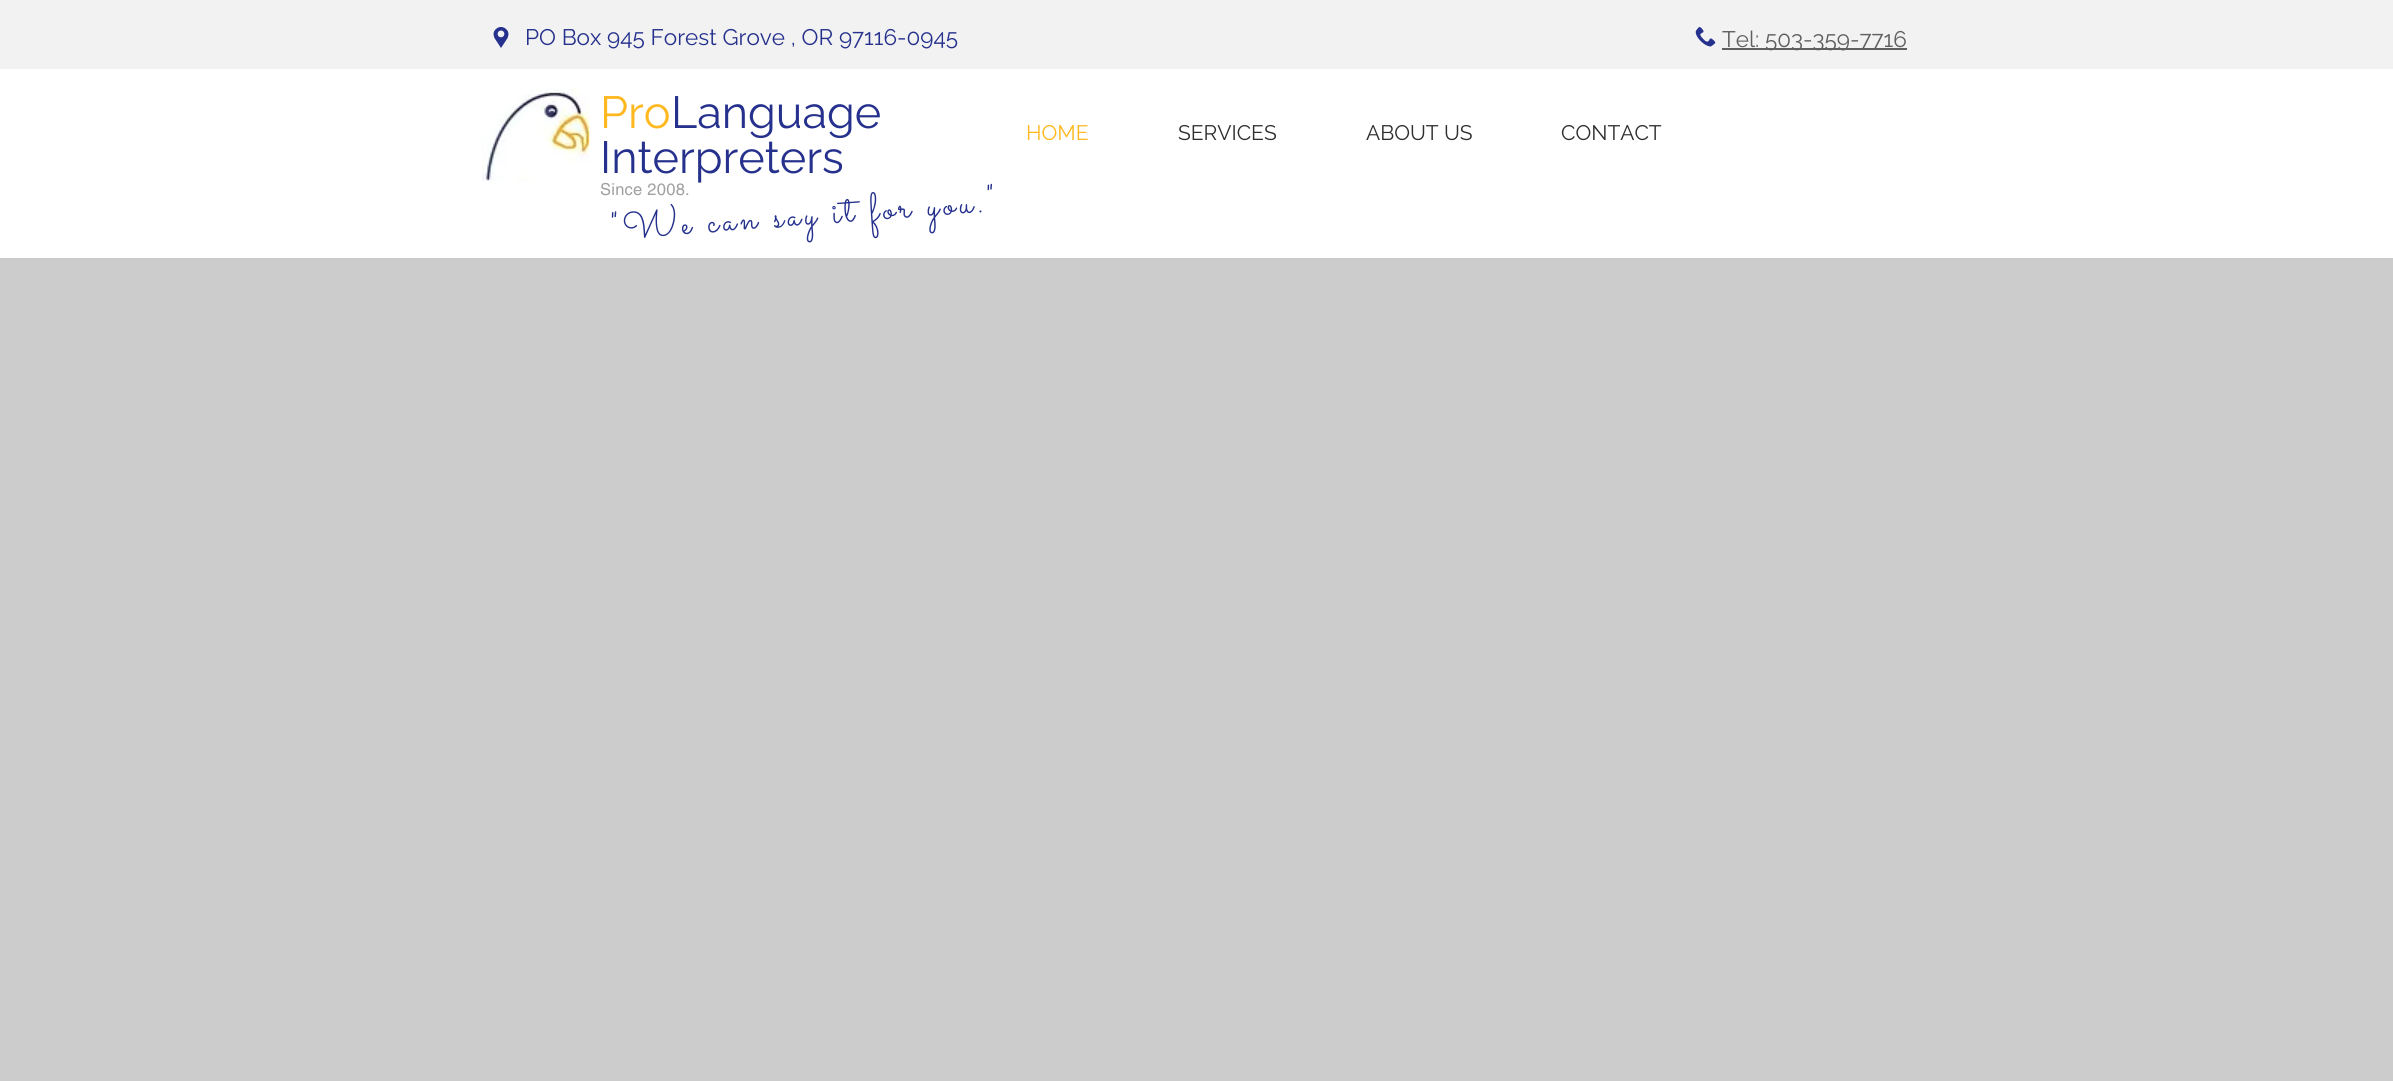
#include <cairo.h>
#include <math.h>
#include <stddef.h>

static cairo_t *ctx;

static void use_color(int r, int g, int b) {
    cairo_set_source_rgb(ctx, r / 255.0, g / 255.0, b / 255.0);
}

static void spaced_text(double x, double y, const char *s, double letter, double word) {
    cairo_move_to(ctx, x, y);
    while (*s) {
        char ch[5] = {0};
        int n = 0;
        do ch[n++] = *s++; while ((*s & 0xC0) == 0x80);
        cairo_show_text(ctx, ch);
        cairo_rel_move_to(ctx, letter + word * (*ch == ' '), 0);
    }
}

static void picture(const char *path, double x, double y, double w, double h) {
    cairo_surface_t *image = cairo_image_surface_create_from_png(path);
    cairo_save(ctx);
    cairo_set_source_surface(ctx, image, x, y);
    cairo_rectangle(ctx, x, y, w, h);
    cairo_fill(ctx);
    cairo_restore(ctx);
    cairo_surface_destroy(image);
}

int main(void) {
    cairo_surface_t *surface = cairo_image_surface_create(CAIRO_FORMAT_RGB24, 2393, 1081);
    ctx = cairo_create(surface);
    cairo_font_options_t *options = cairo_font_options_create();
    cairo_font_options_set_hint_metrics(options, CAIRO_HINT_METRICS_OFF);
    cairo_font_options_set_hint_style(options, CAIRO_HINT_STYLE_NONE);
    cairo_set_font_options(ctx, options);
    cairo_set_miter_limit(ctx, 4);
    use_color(255, 255, 255);
    cairo_paint(ctx);
    use_color(242, 242, 242);
    cairo_rectangle(ctx, 0, 0, 2393, 69);
    cairo_fill(ctx);
    picture("img1.png", 493, 27, 16, 21);
    cairo_select_font_face(ctx, "Raleway", CAIRO_FONT_SLANT_NORMAL, CAIRO_FONT_WEIGHT_NORMAL);
    cairo_set_font_size(ctx, 22.5);
    use_color(37, 49, 141);
    cairo_move_to(ctx, 525, 45);
    cairo_show_text(ctx, "PO Box 945 Forest Grove , OR 97116-0945");
    picture("img2.png", 1695, 27, 21, 20);
    use_color(96, 94, 94);
    cairo_rectangle(ctx, 1722, 48, 185, 2);
    cairo_fill(ctx);
    cairo_move_to(ctx, 1722, 47);
    cairo_show_text(ctx, "Tel: 503-359-7716");
    picture("img3.png", 482, 89, 108, 92);
    cairo_set_font_size(ctx, 45);
    use_color(255, 184, 31);
    cairo_move_to(ctx, 600, 128);
    cairo_show_text(ctx, "Pro");
    use_color(37, 49, 141);
    cairo_move_to(ctx, 671, 128);
    cairo_show_text(ctx, "Language");
    cairo_move_to(ctx, 600, 173);
    cairo_show_text(ctx, "Interpreters");
    cairo_set_font_size(ctx, 21);
    use_color(255, 184, 31);
    cairo_move_to(ctx, 1026, 140);
    cairo_show_text(ctx, "HOME");
    use_color(47, 46, 46);
    cairo_move_to(ctx, 1178, 140);
    cairo_show_text(ctx, "SERVICES");
    cairo_move_to(ctx, 1366, 140);
    cairo_show_text(ctx, "ABOUT US");
    cairo_move_to(ctx, 1561, 140);
    cairo_show_text(ctx, "CONTACT");
    cairo_select_font_face(ctx, "helvetica", CAIRO_FONT_SLANT_NORMAL, CAIRO_FONT_WEIGHT_NORMAL);
    cairo_set_font_size(ctx, 16.5);
    use_color(160, 160, 159);
    spaced_text(600, 195, "Since 2008.", 0.25, 0);
    cairo_select_font_face(ctx, "Sacramento", CAIRO_FONT_SLANT_NORMAL, CAIRO_FONT_WEIGHT_NORMAL);
    cairo_set_font_size(ctx, 39);
    use_color(37, 49, 141);
    cairo_save(ctx);
    cairo_translate(ctx, 612, 239);
    cairo_rotate(ctx, -4.2 * M_PI / 180);
    spaced_text(0, 0, "\"We can say it for you.\"", 3.9, 0);
    cairo_restore(ctx);
    use_color(204, 204, 204);
    cairo_rectangle(ctx, 0, 258, 2393, 823);
    cairo_fill(ctx);
    cairo_surface_write_to_png(surface, "result.png");
    cairo_font_options_destroy(options);
    cairo_destroy(ctx);
    cairo_surface_destroy(surface);
    return 0;
}
